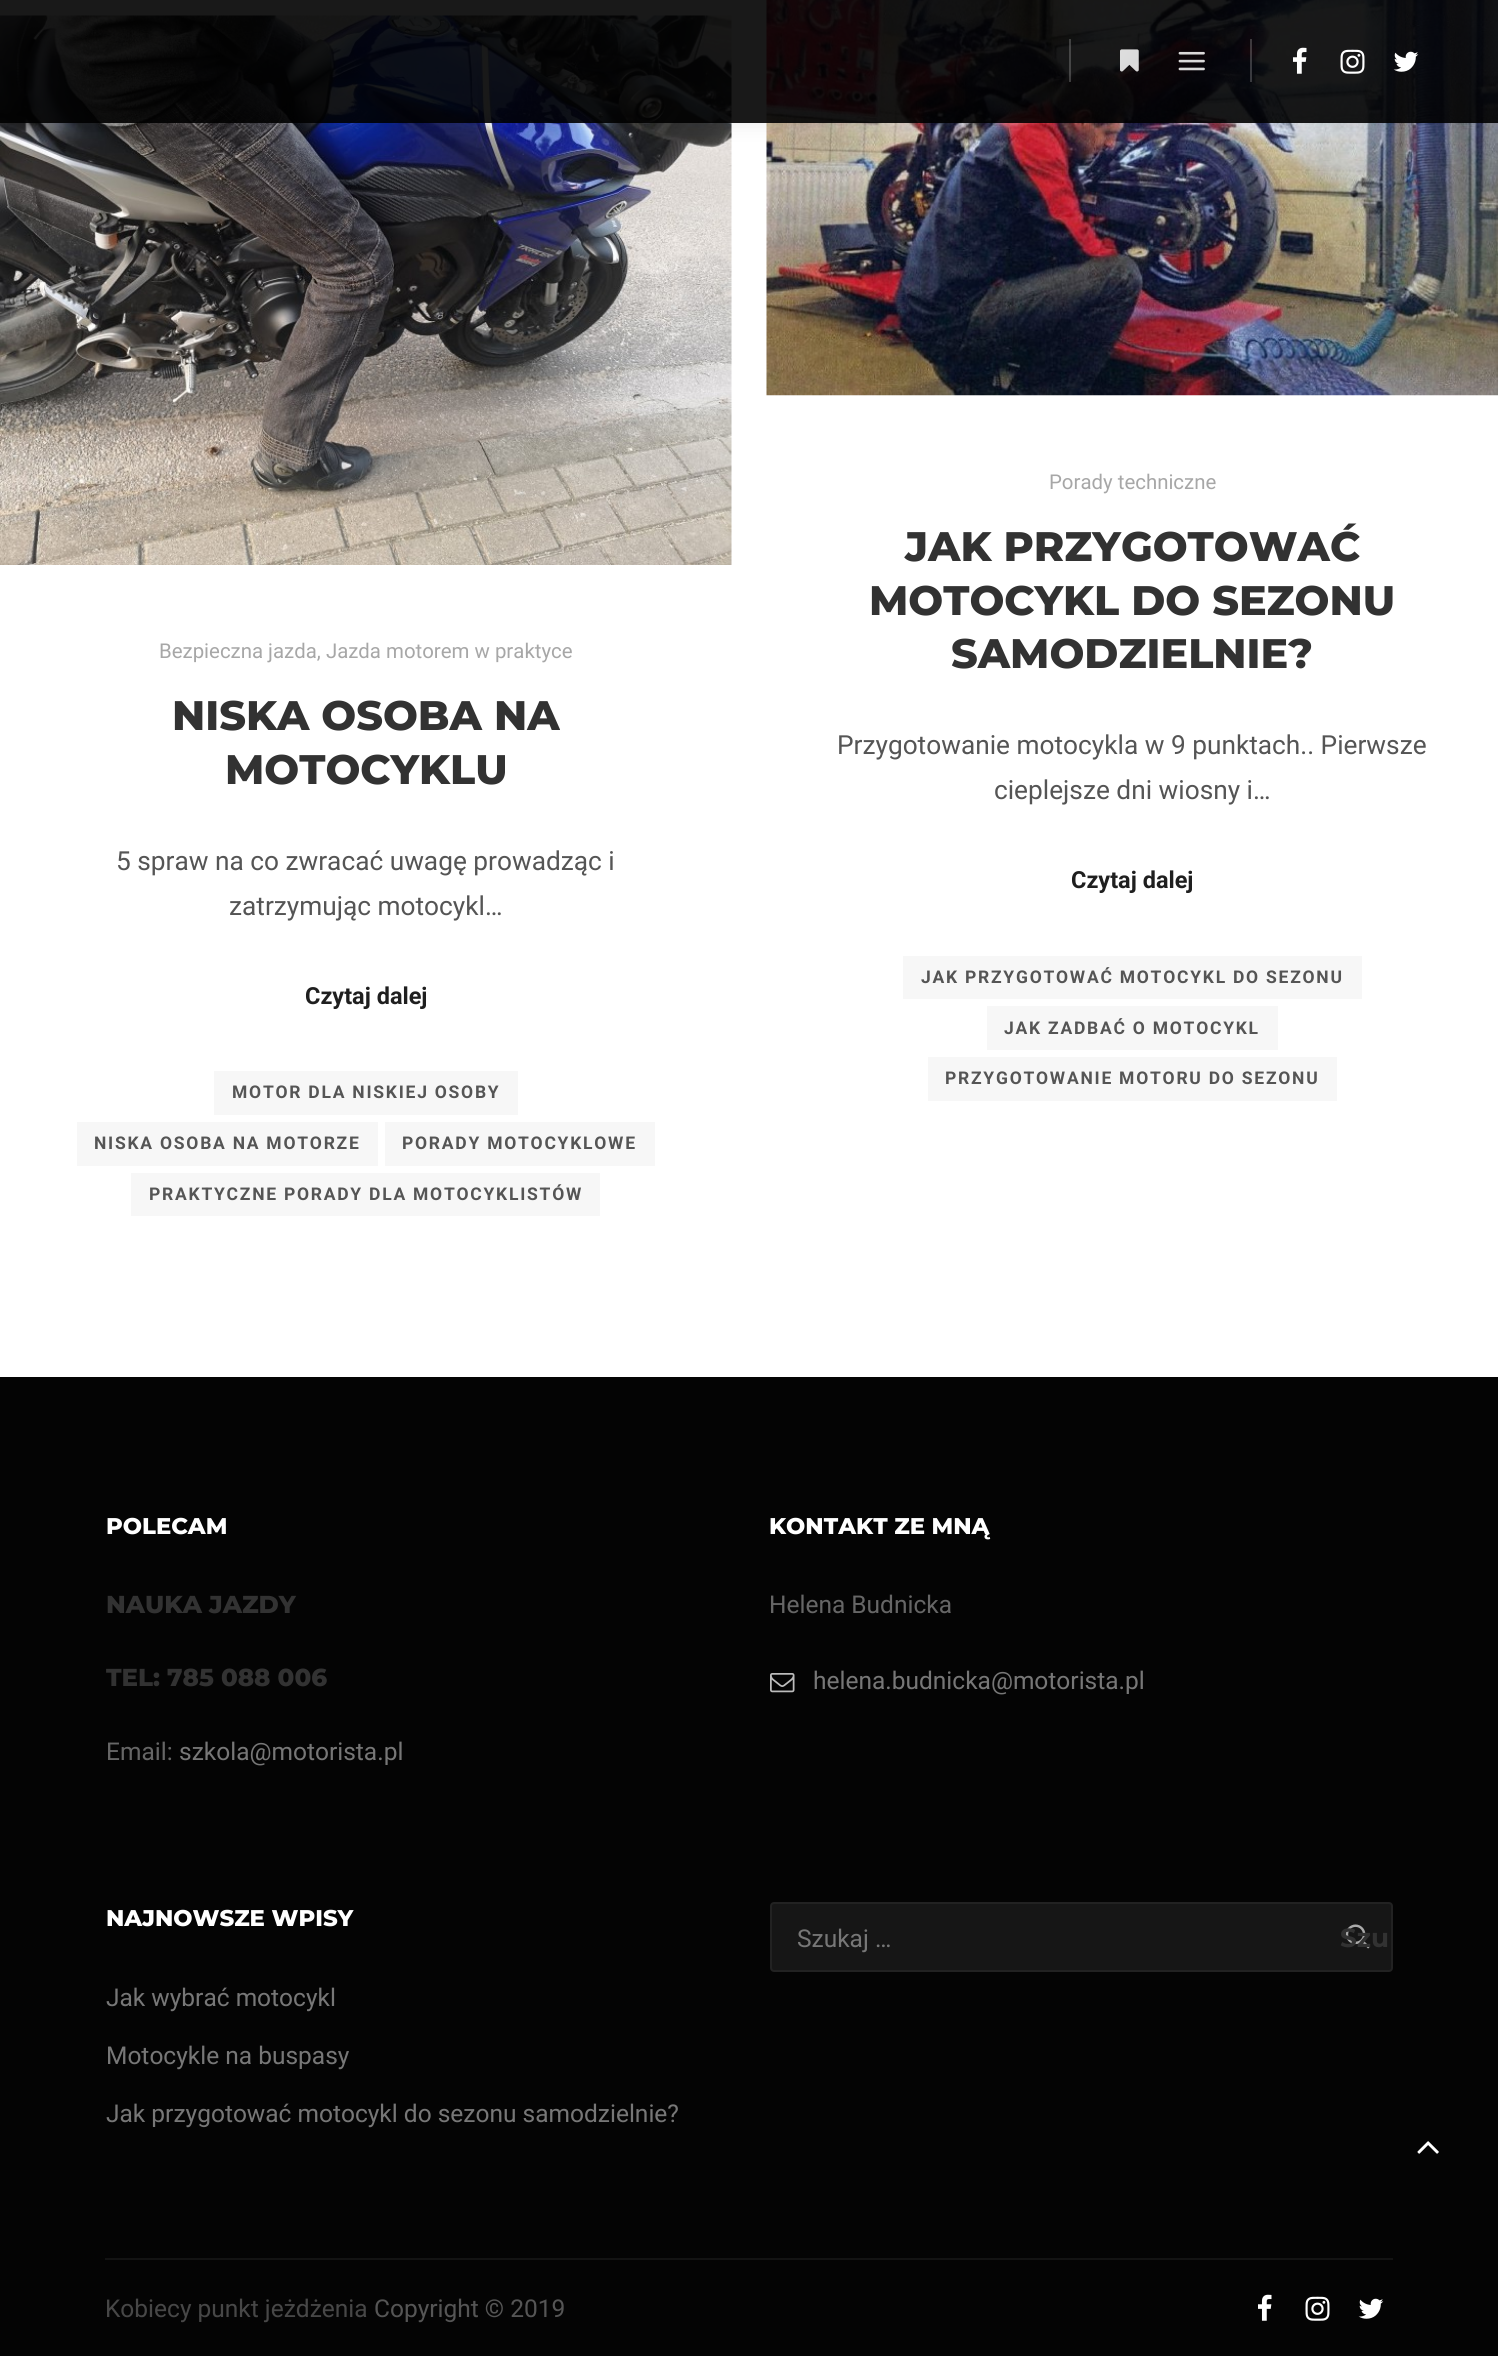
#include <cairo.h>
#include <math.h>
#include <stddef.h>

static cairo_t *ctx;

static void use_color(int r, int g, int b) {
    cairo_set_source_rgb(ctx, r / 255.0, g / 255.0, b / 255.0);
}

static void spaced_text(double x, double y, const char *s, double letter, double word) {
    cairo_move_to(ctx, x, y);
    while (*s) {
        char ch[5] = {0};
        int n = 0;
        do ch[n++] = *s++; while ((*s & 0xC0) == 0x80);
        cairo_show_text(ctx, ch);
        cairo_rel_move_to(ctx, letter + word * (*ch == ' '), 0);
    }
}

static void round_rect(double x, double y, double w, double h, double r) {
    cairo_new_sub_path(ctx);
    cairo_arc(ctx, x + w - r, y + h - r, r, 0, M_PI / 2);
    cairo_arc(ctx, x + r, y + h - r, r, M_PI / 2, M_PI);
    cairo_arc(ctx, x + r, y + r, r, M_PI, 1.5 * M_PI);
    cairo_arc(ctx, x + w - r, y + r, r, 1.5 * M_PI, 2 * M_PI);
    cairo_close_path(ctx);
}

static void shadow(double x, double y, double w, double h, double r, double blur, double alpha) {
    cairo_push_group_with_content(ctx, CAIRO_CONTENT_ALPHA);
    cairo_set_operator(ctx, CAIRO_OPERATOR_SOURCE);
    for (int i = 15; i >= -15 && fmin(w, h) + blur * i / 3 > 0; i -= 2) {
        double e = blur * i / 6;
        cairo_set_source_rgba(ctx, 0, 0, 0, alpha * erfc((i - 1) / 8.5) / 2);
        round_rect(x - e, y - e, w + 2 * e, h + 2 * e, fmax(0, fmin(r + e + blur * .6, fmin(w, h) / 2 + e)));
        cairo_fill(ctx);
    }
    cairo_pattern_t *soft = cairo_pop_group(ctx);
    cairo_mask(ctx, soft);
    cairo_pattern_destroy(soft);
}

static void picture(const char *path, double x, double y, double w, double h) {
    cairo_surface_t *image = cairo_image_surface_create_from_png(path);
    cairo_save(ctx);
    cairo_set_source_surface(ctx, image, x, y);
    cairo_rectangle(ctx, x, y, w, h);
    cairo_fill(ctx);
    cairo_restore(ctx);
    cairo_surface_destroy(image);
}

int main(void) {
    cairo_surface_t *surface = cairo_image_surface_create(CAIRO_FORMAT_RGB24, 1498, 2356);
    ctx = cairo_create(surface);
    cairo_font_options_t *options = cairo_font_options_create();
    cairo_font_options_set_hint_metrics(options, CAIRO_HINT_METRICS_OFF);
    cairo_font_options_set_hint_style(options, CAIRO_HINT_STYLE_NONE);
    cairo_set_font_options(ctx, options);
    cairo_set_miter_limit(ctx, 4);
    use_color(255, 255, 255);
    cairo_paint(ctx);
    picture("img6.png", 0, 15, 732, 550);
    picture("img7.png", 766, 0, 732, 396);
    cairo_save(ctx);
    cairo_set_fill_rule(ctx, CAIRO_FILL_RULE_EVEN_ODD);
    cairo_new_path(ctx);
    cairo_move_to(ctx, 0, 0);
    cairo_line_to(ctx, 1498, 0);
    cairo_line_to(ctx, 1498, 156);
    cairo_line_to(ctx, 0, 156);
    cairo_close_path(ctx);
    cairo_move_to(ctx, 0, 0);
    cairo_line_to(ctx, 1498, 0);
    cairo_line_to(ctx, 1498, 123);
    cairo_line_to(ctx, 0, 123);
    cairo_close_path(ctx);
    cairo_clip(ctx);
    use_color(0, 0, 0);
    shadow(0, 0, 1498, 123, 0, 10.5, 0.09);
    cairo_restore(ctx);
    cairo_set_source_rgba(ctx, 0, 0, 0, 0.9);
    cairo_rectangle(ctx, 0, 0, 1498, 123);
    cairo_fill(ctx);
    cairo_set_source_rgba(ctx, 1, 1, 1, 0.2);
    cairo_rectangle(ctx, 1069, 39, 2, 43);
    cairo_fill(ctx);
    picture("img1.png", 1120, 49, 19, 23);
    picture("img2.png", 1178, 51, 27, 20);
    cairo_rectangle(ctx, 1250, 39, 2, 43);
    cairo_fill(ctx);
    picture("img3.png", 1293, 47, 14, 27);
    picture("img4.png", 1340, 49, 25, 25);
    picture("img5.png", 1393, 51, 26, 21);
    cairo_select_font_face(ctx, "Roboto", CAIRO_FONT_SLANT_NORMAL, CAIRO_FONT_WEIGHT_NORMAL);
    cairo_set_font_size(ctx, 20.4);
    use_color(167, 167, 167);
    cairo_move_to(ctx, 159, 658);
    cairo_show_text(ctx, "Bezpieczna jazda, Jazda motorem w praktyce");
    cairo_select_font_face(ctx, "Montserrat ExtraBold", CAIRO_FONT_SLANT_NORMAL, CAIRO_FONT_WEIGHT_NORMAL);
    cairo_set_font_size(ctx, 41.25);
    use_color(50, 50, 50);
    cairo_move_to(ctx, 172, 730);
    cairo_show_text(ctx, "NISKA OSOBA NA");
    cairo_move_to(ctx, 225, 784);
    cairo_show_text(ctx, "MOTOCYKLU");
    cairo_select_font_face(ctx, "Roboto", CAIRO_FONT_SLANT_NORMAL, CAIRO_FONT_WEIGHT_NORMAL);
    cairo_set_font_size(ctx, 26.25);
    use_color(85, 85, 85);
    cairo_move_to(ctx, 116, 870);
    cairo_show_text(ctx, "5 spraw na co zwracać uwagę prowadząc i");
    cairo_move_to(ctx, 229, 915);
    cairo_show_text(ctx, "zatrzymując motocykl…");
    cairo_select_font_face(ctx, "Roboto", CAIRO_FONT_SLANT_NORMAL, CAIRO_FONT_WEIGHT_BOLD);
    cairo_set_font_size(ctx, 23.5);
    use_color(31, 31, 31);
    cairo_move_to(ctx, 305, 1004);
    cairo_show_text(ctx, "Czytaj dalej");
    use_color(247, 247, 247);
    cairo_rectangle(ctx, 214, 1071, 304, 44);
    cairo_fill(ctx);
    cairo_set_font_size(ctx, 17.5);
    use_color(85, 85, 85);
    spaced_text(232, 1098, "MOTOR DLA NISKIEJ OSOBY", 1.75, 0);
    use_color(247, 247, 247);
    cairo_rectangle(ctx, 77, 1122, 301, 44);
    cairo_fill(ctx);
    use_color(85, 85, 85);
    spaced_text(94, 1149, "NISKA OSOBA NA MOTORZE", 1.75, 0);
    use_color(247, 247, 247);
    cairo_rectangle(ctx, 385, 1122, 270, 44);
    cairo_fill(ctx);
    use_color(85, 85, 85);
    spaced_text(402, 1149, "PORADY MOTOCYKLOWE", 1.75, 0);
    use_color(247, 247, 247);
    cairo_rectangle(ctx, 131, 1173, 469, 43);
    cairo_fill(ctx);
    use_color(85, 85, 85);
    spaced_text(149, 1200, "PRAKTYCZNE PORADY DLA MOTOCYKLISTÓW", 1.75, 0);
    cairo_select_font_face(ctx, "Roboto", CAIRO_FONT_SLANT_NORMAL, CAIRO_FONT_WEIGHT_NORMAL);
    cairo_set_font_size(ctx, 20.4);
    use_color(167, 167, 167);
    cairo_move_to(ctx, 1049, 489);
    cairo_show_text(ctx, "Porady techniczne");
    cairo_select_font_face(ctx, "Montserrat ExtraBold", CAIRO_FONT_SLANT_NORMAL, CAIRO_FONT_WEIGHT_NORMAL);
    cairo_set_font_size(ctx, 41.25);
    use_color(50, 50, 50);
    cairo_move_to(ctx, 905, 561);
    cairo_show_text(ctx, "JAK PRZYGOTOWAĆ");
    cairo_move_to(ctx, 869, 615);
    cairo_show_text(ctx, "MOTOCYKL DO SEZONU");
    cairo_move_to(ctx, 951, 668);
    cairo_show_text(ctx, "SAMODZIELNIE?");
    cairo_select_font_face(ctx, "Roboto", CAIRO_FONT_SLANT_NORMAL, CAIRO_FONT_WEIGHT_NORMAL);
    cairo_set_font_size(ctx, 26.25);
    use_color(85, 85, 85);
    cairo_move_to(ctx, 837, 754);
    cairo_show_text(ctx, "Przygotowanie motocykla w 9 punktach.. Pierwsze");
    cairo_move_to(ctx, 994, 799);
    cairo_show_text(ctx, "cieplejsze dni wiosny i…");
    cairo_select_font_face(ctx, "Roboto", CAIRO_FONT_SLANT_NORMAL, CAIRO_FONT_WEIGHT_BOLD);
    cairo_set_font_size(ctx, 23.5);
    use_color(31, 31, 31);
    cairo_move_to(ctx, 1071, 888);
    cairo_show_text(ctx, "Czytaj dalej");
    use_color(247, 247, 247);
    cairo_rectangle(ctx, 903, 956, 459, 43);
    cairo_fill(ctx);
    cairo_set_font_size(ctx, 17.5);
    use_color(85, 85, 85);
    spaced_text(921, 983, "JAK PRZYGOTOWAĆ MOTOCYKL DO SEZONU", 1.75, 0);
    use_color(247, 247, 247);
    cairo_rectangle(ctx, 987, 1006, 291, 44);
    cairo_fill(ctx);
    use_color(85, 85, 85);
    spaced_text(1004, 1034, "JAK ZADBAĆ O MOTOCYKL", 1.75, 0);
    use_color(247, 247, 247);
    cairo_rectangle(ctx, 928, 1057, 409, 44);
    cairo_fill(ctx);
    use_color(85, 85, 85);
    spaced_text(945, 1084, "PRZYGOTOWANIE MOTORU DO SEZONU", 1.75, 0);
    use_color(4, 4, 4);
    cairo_rectangle(ctx, 0, 1377, 1498, 979);
    cairo_fill(ctx);
    cairo_select_font_face(ctx, "Montserrat ExtraBold", CAIRO_FONT_SLANT_NORMAL, CAIRO_FONT_WEIGHT_NORMAL);
    cairo_set_font_size(ctx, 22.75);
    use_color(255, 255, 255);
    cairo_move_to(ctx, 106, 1534);
    cairo_show_text(ctx, "POLECAM");
    cairo_set_font_size(ctx, 24.5);
    use_color(50, 50, 50);
    cairo_move_to(ctx, 106, 1613);
    cairo_show_text(ctx, "NAUKA JAZDY");
    cairo_move_to(ctx, 106, 1686);
    cairo_show_text(ctx, "TEL: 785 088 006");
    cairo_select_font_face(ctx, "Roboto", CAIRO_FONT_SLANT_NORMAL, CAIRO_FONT_WEIGHT_NORMAL);
    use_color(102, 102, 102);
    cairo_move_to(ctx, 106, 1760);
    cairo_show_text(ctx, "Email:");
    use_color(119, 119, 119);
    cairo_move_to(ctx, 179, 1760);
    cairo_show_text(ctx, "szkola@motorista.pl");
    cairo_select_font_face(ctx, "Montserrat ExtraBold", CAIRO_FONT_SLANT_NORMAL, CAIRO_FONT_WEIGHT_NORMAL);
    cairo_set_font_size(ctx, 22.75);
    use_color(255, 255, 255);
    cairo_move_to(ctx, 769, 1534);
    cairo_show_text(ctx, "KONTAKT ZE MNĄ");
    cairo_select_font_face(ctx, "Roboto", CAIRO_FONT_SLANT_NORMAL, CAIRO_FONT_WEIGHT_NORMAL);
    cairo_set_font_size(ctx, 24.5);
    use_color(102, 102, 102);
    cairo_move_to(ctx, 769, 1613);
    cairo_show_text(ctx, "Helena Budnicka");
    picture("img8.png", 770, 1673, 25, 20);
    use_color(119, 119, 119);
    cairo_move_to(ctx, 813, 1689);
    cairo_show_text(ctx, "helena.budnicka@motorista.pl");
    cairo_select_font_face(ctx, "Montserrat ExtraBold", CAIRO_FONT_SLANT_NORMAL, CAIRO_FONT_WEIGHT_NORMAL);
    cairo_set_font_size(ctx, 22.75);
    use_color(255, 255, 255);
    cairo_move_to(ctx, 106, 1926);
    cairo_show_text(ctx, "NAJNOWSZE WPISY");
    cairo_select_font_face(ctx, "Roboto", CAIRO_FONT_SLANT_NORMAL, CAIRO_FONT_WEIGHT_NORMAL);
    cairo_set_font_size(ctx, 24.5);
    use_color(119, 119, 119);
    cairo_move_to(ctx, 106, 2006);
    cairo_show_text(ctx, "Jak wybrać motocykl");
    cairo_move_to(ctx, 106, 2064);
    cairo_show_text(ctx, "Motocykle na buspasy");
    cairo_move_to(ctx, 106, 2122);
    cairo_show_text(ctx, "Jak przygotować motocykl do sezonu samodzielnie?");
    use_color(22, 22, 22);
    round_rect(771, 1903, 621, 68, 3);
    cairo_fill_preserve(ctx);
    use_color(34, 34, 34);
    cairo_stroke(ctx);
    picture("img9.png", 1345, 1924, 25, 25);
    use_color(119, 119, 119);
    cairo_move_to(ctx, 797, 1947);
    cairo_show_text(ctx, "Szukaj …");
    cairo_select_font_face(ctx, "Montserrat", CAIRO_FONT_SLANT_NORMAL, CAIRO_FONT_WEIGHT_BOLD);
    cairo_set_font_size(ctx, 26.25);
    use_color(50, 50, 50);
    cairo_move_to(ctx, 1340, 1947);
    cairo_show_text(ctx, "Szu");
    use_color(19, 19, 19);
    cairo_rectangle(ctx, 105, 2258, 1288, 2);
    cairo_fill(ctx);
    cairo_select_font_face(ctx, "Roboto", CAIRO_FONT_SLANT_NORMAL, CAIRO_FONT_WEIGHT_NORMAL);
    cairo_set_font_size(ctx, 24.5);
    use_color(71, 71, 71);
    cairo_move_to(ctx, 105, 2317);
    cairo_show_text(ctx, "Kobiecy punkt jeżdżenia");
    use_color(85, 85, 85);
    cairo_move_to(ctx, 374, 2317);
    cairo_show_text(ctx, "Copyright © 2019");
    picture("img10.png", 1258, 2294, 14, 27);
    picture("img11.png", 1305, 2296, 25, 25);
    picture("img12.png", 1358, 2298, 26, 21);
    picture("img13.png", 1417, 2141, 22, 13);
    cairo_surface_write_to_png(surface, "result.png");
    cairo_font_options_destroy(options);
    cairo_destroy(ctx);
    cairo_surface_destroy(surface);
    return 0;
}
